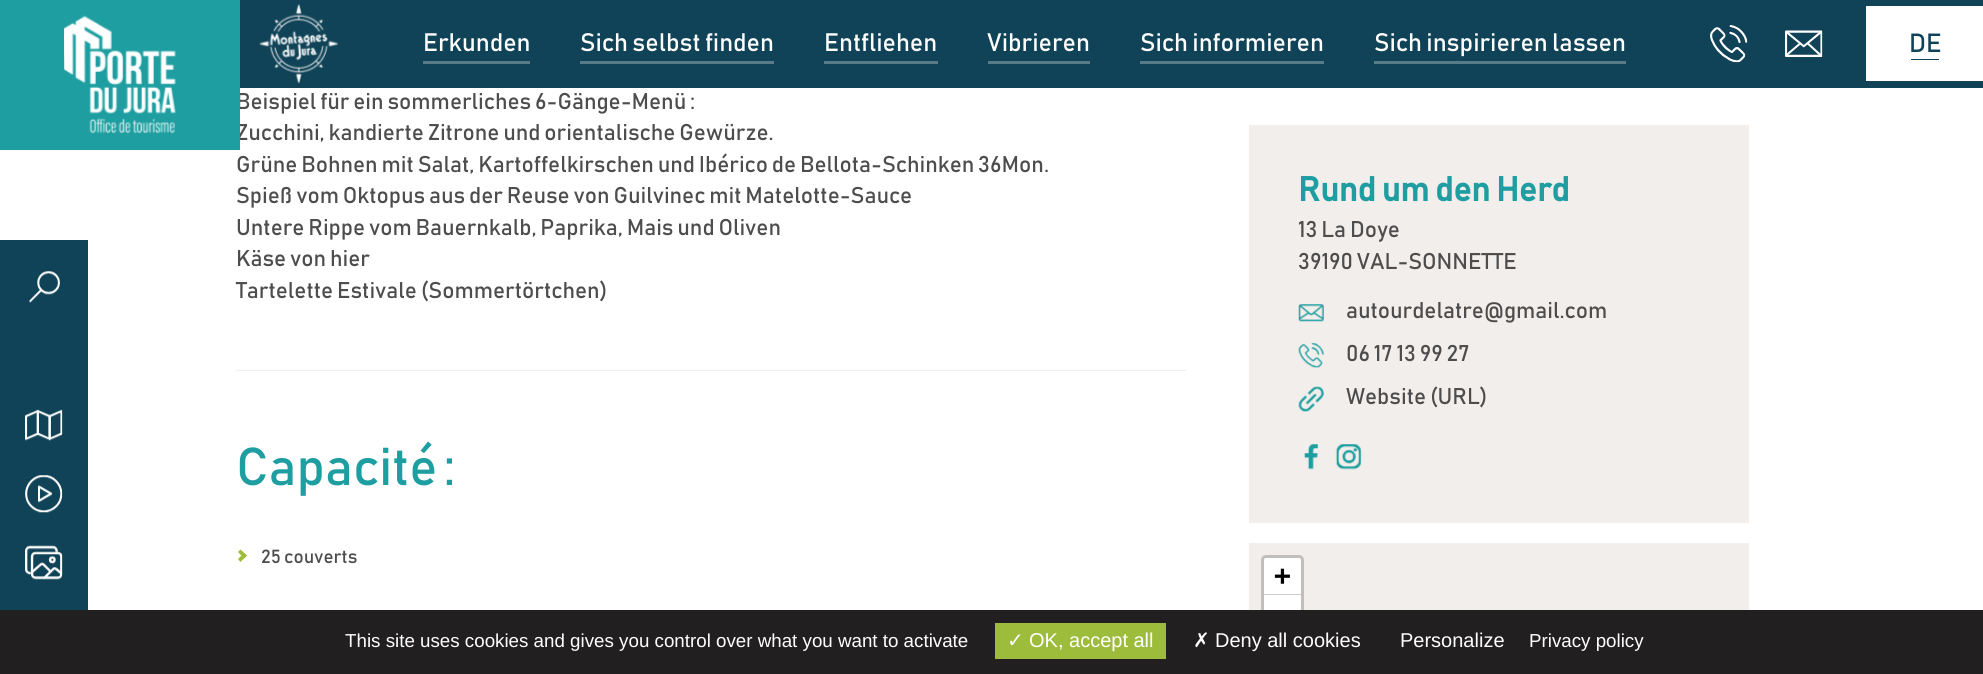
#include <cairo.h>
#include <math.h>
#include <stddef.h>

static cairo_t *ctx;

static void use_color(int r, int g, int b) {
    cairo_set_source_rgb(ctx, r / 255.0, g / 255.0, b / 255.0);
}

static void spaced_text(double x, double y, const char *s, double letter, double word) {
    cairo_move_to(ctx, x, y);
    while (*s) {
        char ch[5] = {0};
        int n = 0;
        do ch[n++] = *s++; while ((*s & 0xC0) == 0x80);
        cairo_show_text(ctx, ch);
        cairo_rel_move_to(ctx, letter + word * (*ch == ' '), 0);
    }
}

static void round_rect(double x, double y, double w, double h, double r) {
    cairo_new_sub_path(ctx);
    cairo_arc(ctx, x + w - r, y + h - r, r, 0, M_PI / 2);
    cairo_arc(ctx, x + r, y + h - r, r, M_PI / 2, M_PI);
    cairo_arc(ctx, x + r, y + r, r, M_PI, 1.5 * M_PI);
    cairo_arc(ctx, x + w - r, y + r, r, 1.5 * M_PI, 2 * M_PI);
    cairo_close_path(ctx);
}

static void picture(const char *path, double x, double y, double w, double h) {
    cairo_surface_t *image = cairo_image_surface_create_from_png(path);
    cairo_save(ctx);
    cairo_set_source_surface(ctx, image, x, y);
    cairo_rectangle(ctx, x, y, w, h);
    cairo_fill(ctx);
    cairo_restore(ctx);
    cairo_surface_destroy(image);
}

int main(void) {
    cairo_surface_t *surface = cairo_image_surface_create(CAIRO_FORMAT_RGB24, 1983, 674);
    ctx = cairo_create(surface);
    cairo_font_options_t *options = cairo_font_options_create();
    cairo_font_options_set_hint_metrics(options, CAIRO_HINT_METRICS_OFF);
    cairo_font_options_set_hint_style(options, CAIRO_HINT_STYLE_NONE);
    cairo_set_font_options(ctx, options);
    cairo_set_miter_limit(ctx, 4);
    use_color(255, 255, 255);
    cairo_paint(ctx);
    use_color(16, 67, 87);
    cairo_rectangle(ctx, 240, 0, 1743, 88);
    cairo_fill(ctx);
    cairo_select_font_face(ctx, "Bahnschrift", CAIRO_FONT_SLANT_NORMAL, CAIRO_FONT_WEIGHT_NORMAL);
    cairo_set_font_size(ctx, 22.5);
    use_color(78, 77, 77);
    cairo_move_to(ctx, 236, 109);
    cairo_show_text(ctx, "Beispiel für ein sommerliches 6-Gänge-Menü :");
    cairo_move_to(ctx, 236, 140);
    cairo_show_text(ctx, "Zucchini, kandierte Zitrone und orientalische Gewürze.");
    use_color(30, 158, 160);
    cairo_rectangle(ctx, 0, 0, 240, 150);
    cairo_fill(ctx);
    picture("img1.png", 64, 15, 112, 119);
    picture("img2.png", 259, 4, 79, 80);
    cairo_set_font_size(ctx, 25);
    use_color(255, 255, 255);
    cairo_move_to(ctx, 423, 51);
    cairo_show_text(ctx, "Erkunden");
    use_color(88, 123, 137);
    cairo_rectangle(ctx, 423, 61, 107, 3);
    cairo_fill(ctx);
    use_color(255, 255, 255);
    cairo_move_to(ctx, 580, 51);
    cairo_show_text(ctx, "Sich selbst finden");
    use_color(88, 123, 137);
    cairo_rectangle(ctx, 580, 61, 194, 3);
    cairo_fill(ctx);
    use_color(255, 255, 255);
    cairo_move_to(ctx, 824, 51);
    cairo_show_text(ctx, "Entfliehen");
    use_color(88, 123, 137);
    cairo_rectangle(ctx, 824, 61, 114, 3);
    cairo_fill(ctx);
    use_color(255, 255, 255);
    cairo_move_to(ctx, 987, 51);
    cairo_show_text(ctx, "Vibrieren");
    use_color(88, 123, 137);
    cairo_rectangle(ctx, 988, 61, 102, 3);
    cairo_fill(ctx);
    use_color(255, 255, 255);
    cairo_move_to(ctx, 1140, 51);
    cairo_show_text(ctx, "Sich informieren");
    use_color(88, 123, 137);
    cairo_rectangle(ctx, 1140, 61, 184, 3);
    cairo_fill(ctx);
    use_color(255, 255, 255);
    cairo_move_to(ctx, 1374, 51);
    cairo_show_text(ctx, "Sich inspirieren lassen");
    use_color(88, 123, 137);
    cairo_rectangle(ctx, 1374, 61, 252, 3);
    cairo_fill(ctx);
    picture("img3.png", 1710, 25, 38, 38);
    picture("img4.png", 1785, 30, 38, 27);
    use_color(255, 255, 255);
    cairo_rectangle(ctx, 1866, 6, 117, 75);
    cairo_fill(ctx);
    cairo_set_font_size(ctx, 26);
    use_color(16, 67, 87);
    cairo_move_to(ctx, 1909, 52);
    cairo_show_text(ctx, "DE");
    cairo_rectangle(ctx, 1911, 59, 28, 1);
    cairo_fill(ctx);
    cairo_rectangle(ctx, 0, 240, 88, 370);
    cairo_fill(ctx);
    picture("img5.png", 29, 271, 31, 32);
    picture("img6.png", 25, 409, 38, 32);
    picture("img7.png", 25, 475, 38, 38);
    picture("img8.png", 25, 545, 38, 35);
    use_color(242, 238, 235);
    cairo_rectangle(ctx, 236, 370, 950, 1);
    cairo_fill(ctx);
    cairo_set_font_size(ctx, 22.5);
    use_color(78, 77, 77);
    cairo_move_to(ctx, 236, 172);
    cairo_show_text(ctx, "Grüne Bohnen mit Salat, Kartoffelkirschen und Ibérico de Bellota-Schinken 36Mon.");
    cairo_move_to(ctx, 236, 203);
    cairo_show_text(ctx, "Spieß vom Oktopus aus der Reuse von Guilvinec mit Matelotte-Sauce");
    cairo_move_to(ctx, 236, 235);
    cairo_show_text(ctx, "Untere Rippe vom Bauernkalb, Paprika, Mais und Oliven");
    cairo_move_to(ctx, 236, 266);
    cairo_show_text(ctx, "Käse von hier");
    cairo_move_to(ctx, 236, 298);
    cairo_show_text(ctx, "Tartelette Estivale (Sommertörtchen)");
    cairo_set_font_size(ctx, 52.5);
    use_color(30, 158, 160);
    spaced_text(236, 485, "Capacité :", 0, -3);
    use_color(157, 188, 60);
    cairo_new_path(ctx);
    cairo_move_to(ctx, 238, 552);
    cairo_line_to(ctx, 240.5, 549.5);
    cairo_line_to(ctx, 247, 555.5);
    cairo_line_to(ctx, 244, 558.5);
    cairo_close_path(ctx);
    cairo_fill(ctx);
    cairo_new_path(ctx);
    cairo_move_to(ctx, 238, 559);
    cairo_line_to(ctx, 244, 553);
    cairo_line_to(ctx, 247, 555.5);
    cairo_line_to(ctx, 240.5, 562);
    cairo_close_path(ctx);
    cairo_fill(ctx);
    cairo_set_font_size(ctx, 18.75);
    use_color(78, 77, 77);
    cairo_move_to(ctx, 261, 563);
    cairo_show_text(ctx, "25 couverts");
    use_color(242, 238, 235);
    cairo_rectangle(ctx, 1249, 125, 500, 398);
    cairo_fill(ctx);
    cairo_select_font_face(ctx, "Bahnschrift", CAIRO_FONT_SLANT_NORMAL, CAIRO_FONT_WEIGHT_BOLD);
    cairo_set_font_size(ctx, 33.75);
    use_color(30, 158, 160);
    cairo_move_to(ctx, 1298, 201);
    cairo_show_text(ctx, "Rund um den Herd");
    cairo_select_font_face(ctx, "Bahnschrift", CAIRO_FONT_SLANT_NORMAL, CAIRO_FONT_WEIGHT_NORMAL);
    cairo_set_font_size(ctx, 22.5);
    use_color(78, 77, 77);
    cairo_move_to(ctx, 1298, 237);
    cairo_show_text(ctx, "13 La Doye");
    cairo_move_to(ctx, 1298, 269);
    cairo_show_text(ctx, "39190 VAL-SONNETTE");
    picture("img9.png", 1298, 304, 26, 18);
    cairo_move_to(ctx, 1346, 318);
    cairo_show_text(ctx, "autourdelatre@gmail.com");
    picture("img10.png", 1298, 342, 26, 27);
    cairo_move_to(ctx, 1346, 361);
    cairo_show_text(ctx, "06 17 13 99 27");
    picture("img11.png", 1298, 386, 26, 26);
    cairo_move_to(ctx, 1346, 404);
    cairo_show_text(ctx, "Website (URL)");
    picture("img12.png", 1304, 444, 15, 26);
    picture("img13.png", 1335, 444, 27, 26);
    use_color(242, 238, 235);
    cairo_rectangle(ctx, 1249, 543, 500, 67);
    cairo_fill(ctx);
    round_rect(1262.5, 556.5, 40, 77, 3.5);
    use_color(194, 190, 188);
    cairo_set_line_width(ctx, 3);
    cairo_stroke(ctx);
    use_color(255, 255, 255);
    cairo_new_path(ctx);
    cairo_move_to(ctx, 1266.5, 558);
    cairo_line_to(ctx, 1298.5, 558);
    cairo_curve_to(ctx, 1300, 558, 1301, 559, 1301, 560.5);
    cairo_line_to(ctx, 1301, 595);
    cairo_line_to(ctx, 1264, 595);
    cairo_line_to(ctx, 1264, 560.5);
    cairo_curve_to(ctx, 1264, 559, 1265, 558, 1266.5, 558);
    cairo_close_path(ctx);
    cairo_fill(ctx);
    use_color(204, 204, 204);
    cairo_rectangle(ctx, 1264, 594, 37, 1);
    cairo_fill(ctx);
    cairo_select_font_face(ctx, "DejaVu Sans Mono", CAIRO_FONT_SLANT_NORMAL, CAIRO_FONT_WEIGHT_BOLD);
    cairo_set_font_size(ctx, 28);
    use_color(0, 0, 0);
    cairo_move_to(ctx, 1274, 585);
    cairo_show_text(ctx, "+");
    use_color(255, 255, 255);
    cairo_rectangle(ctx, 1264, 595, 37, 15);
    cairo_fill(ctx);
    use_color(33, 31, 31);
    cairo_rectangle(ctx, 0, 610, 1983, 64);
    cairo_fill(ctx);
    cairo_select_font_face(ctx, "Liberation Sans", CAIRO_FONT_SLANT_NORMAL, CAIRO_FONT_WEIGHT_NORMAL);
    cairo_set_font_size(ctx, 18.75);
    use_color(255, 255, 255);
    cairo_move_to(ctx, 345, 647);
    cairo_show_text(ctx, "This site uses cookies and gives you control over what you want to activate");
    use_color(157, 188, 60);
    cairo_rectangle(ctx, 995, 623, 171, 36);
    cairo_fill(ctx);
    cairo_select_font_face(ctx, "DejaVu Sans", CAIRO_FONT_SLANT_NORMAL, CAIRO_FONT_WEIGHT_NORMAL);
    cairo_set_font_size(ctx, 20);
    use_color(255, 255, 255);
    cairo_move_to(ctx, 1007, 647);
    cairo_show_text(ctx, "✓");
    cairo_select_font_face(ctx, "Liberation Sans", CAIRO_FONT_SLANT_NORMAL, CAIRO_FONT_WEIGHT_NORMAL);
    cairo_move_to(ctx, 1029, 647);
    cairo_show_text(ctx, "OK, accept all");
    cairo_select_font_face(ctx, "DejaVu Sans", CAIRO_FONT_SLANT_NORMAL, CAIRO_FONT_WEIGHT_NORMAL);
    cairo_move_to(ctx, 1193, 647);
    cairo_show_text(ctx, "✗");
    cairo_select_font_face(ctx, "Liberation Sans", CAIRO_FONT_SLANT_NORMAL, CAIRO_FONT_WEIGHT_NORMAL);
    cairo_move_to(ctx, 1215, 647);
    cairo_show_text(ctx, "Deny all cookies");
    cairo_move_to(ctx, 1400, 647);
    cairo_show_text(ctx, "Personalize");
    cairo_set_font_size(ctx, 18.75);
    cairo_move_to(ctx, 1529, 647);
    cairo_show_text(ctx, "Privacy policy");
    cairo_surface_write_to_png(surface, "result.png");
    cairo_font_options_destroy(options);
    cairo_destroy(ctx);
    cairo_surface_destroy(surface);
    return 0;
}
